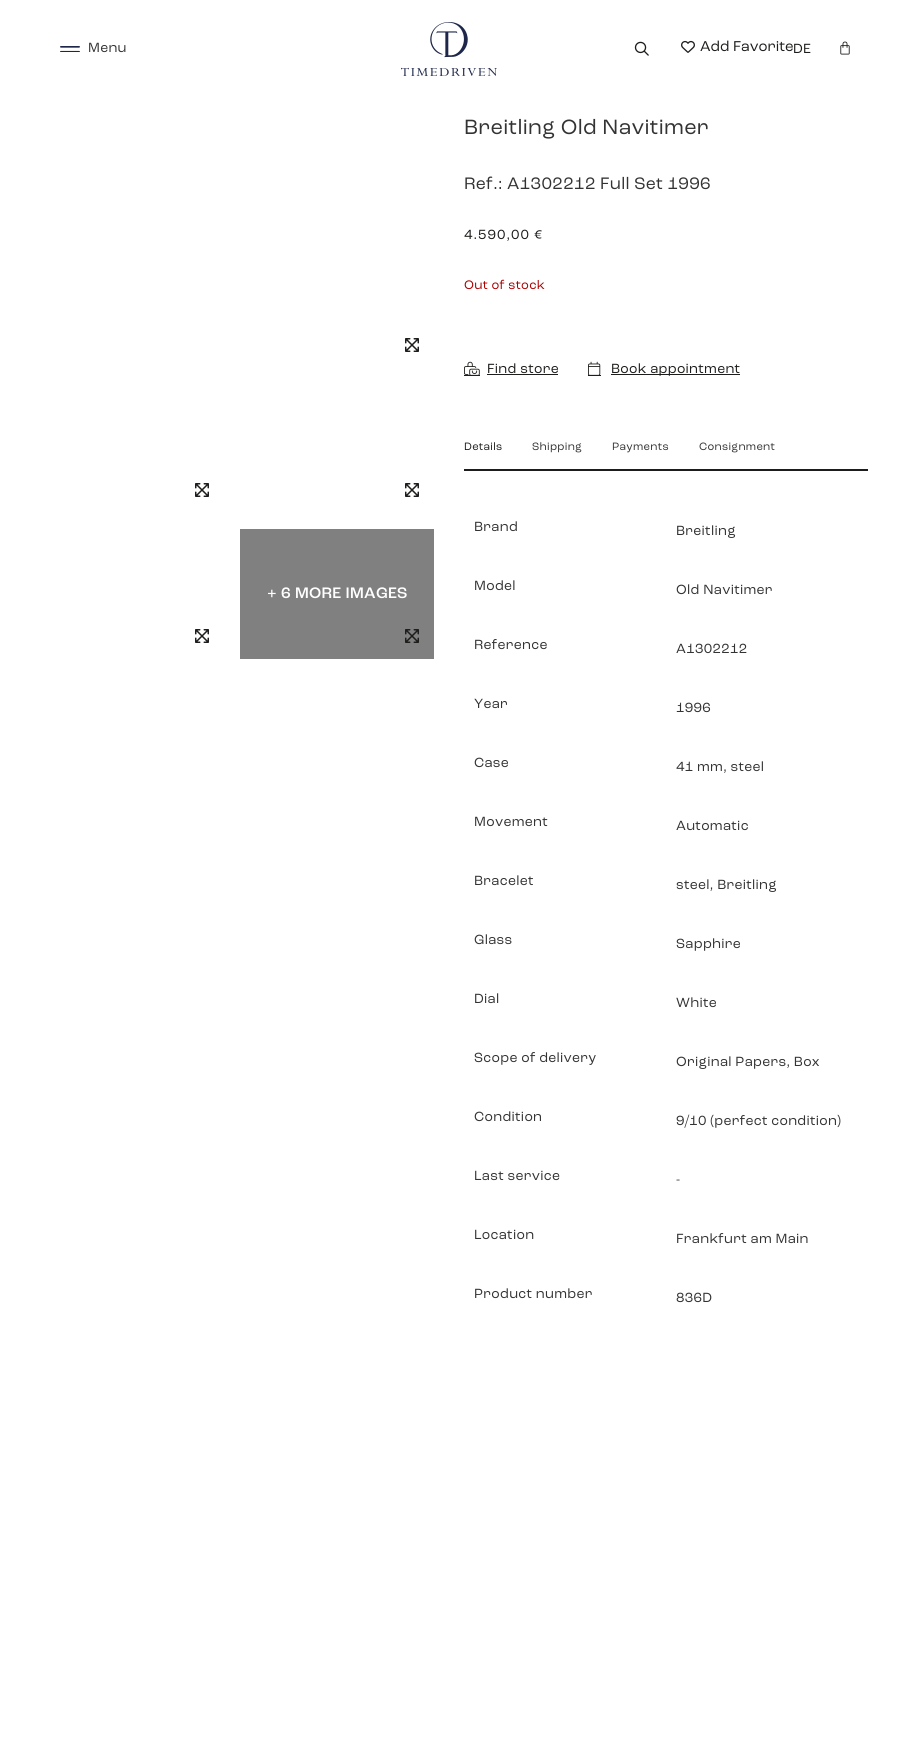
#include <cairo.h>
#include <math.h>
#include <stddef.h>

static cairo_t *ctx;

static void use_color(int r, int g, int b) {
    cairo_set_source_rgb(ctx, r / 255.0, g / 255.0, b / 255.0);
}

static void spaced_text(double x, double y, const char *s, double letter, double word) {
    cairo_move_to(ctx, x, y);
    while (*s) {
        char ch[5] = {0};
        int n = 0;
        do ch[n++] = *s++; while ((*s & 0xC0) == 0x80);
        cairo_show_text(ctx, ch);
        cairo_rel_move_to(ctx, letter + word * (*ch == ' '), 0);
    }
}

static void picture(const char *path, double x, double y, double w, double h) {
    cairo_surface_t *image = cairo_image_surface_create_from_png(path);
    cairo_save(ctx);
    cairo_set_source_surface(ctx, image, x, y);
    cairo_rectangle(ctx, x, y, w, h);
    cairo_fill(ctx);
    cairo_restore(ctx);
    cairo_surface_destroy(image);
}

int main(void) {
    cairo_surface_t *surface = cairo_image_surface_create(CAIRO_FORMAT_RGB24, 898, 1744);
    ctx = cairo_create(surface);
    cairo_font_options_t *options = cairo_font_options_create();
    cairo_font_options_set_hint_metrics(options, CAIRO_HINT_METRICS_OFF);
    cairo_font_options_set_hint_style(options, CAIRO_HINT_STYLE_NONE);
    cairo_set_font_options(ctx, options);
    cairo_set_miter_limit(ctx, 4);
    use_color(255, 255, 255);
    cairo_paint(ctx);
    picture("img1.png", 60, 46, 20, 6);
    cairo_select_font_face(ctx, "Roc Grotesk", CAIRO_FONT_SLANT_NORMAL, CAIRO_FONT_WEIGHT_NORMAL);
    cairo_set_font_size(ctx, 14);
    use_color(51, 51, 51);
    spaced_text(88, 52, "Menu", 0.3, 0);
    picture("img2.png", 401, 22, 96, 54);
    picture("img3.png", 634, 41, 15, 15);
    picture("img4.png", 681, 40, 14, 13);
    cairo_set_font_size(ctx, 15);
    use_color(29, 29, 27);
    cairo_move_to(ctx, 700, 51);
    cairo_show_text(ctx, "Add Favorite");
    cairo_set_font_size(ctx, 14);
    spaced_text(793, 53, "DE", 0.3, 0);
    picture("img5.png", 840, 41, 10, 14);
    picture("img6.png", 405, 338, 14, 14);
    picture("img6.png", 195, 483, 14, 14);
    picture("img6.png", 405, 483, 14, 14);
    use_color(128, 128, 128);
    cairo_rectangle(ctx, 240, 529, 194, 130);
    cairo_fill(ctx);
    cairo_select_font_face(ctx, "Roc Grotesk Medium", CAIRO_FONT_SLANT_NORMAL, CAIRO_FONT_WEIGHT_NORMAL);
    cairo_set_font_size(ctx, 16);
    use_color(255, 255, 255);
    spaced_text(267, 598, "+ 6 MORE IMAGES", 0.3, 0);
    picture("img7.png", 405, 629, 14, 14);
    picture("img6.png", 195, 629, 14, 14);
    cairo_select_font_face(ctx, "Roc Grotesk", CAIRO_FONT_SLANT_NORMAL, CAIRO_FONT_WEIGHT_NORMAL);
    cairo_set_font_size(ctx, 21.75);
    use_color(51, 51, 51);
    spaced_text(464, 134, "Breitling Old Navitimer", 0.3, 0);
    cairo_set_font_size(ctx, 17.5);
    spaced_text(464, 189, "Ref.: A1302212 Full Set 1996", 0.3, 0);
    cairo_set_font_size(ctx, 14);
    use_color(29, 29, 27);
    spaced_text(464, 239, "4.590,00 €", 1, 0);
    cairo_set_font_size(ctx, 13);
    use_color(170, 0, 0);
    spaced_text(464, 289, "Out of stock", 0.3, 0);
    picture("img8.png", 464, 361, 16, 14);
    use_color(29, 29, 27);
    cairo_rectangle(ctx, 464, 375, 16, 1);
    cairo_fill(ctx);
    cairo_set_font_size(ctx, 14);
    spaced_text(487, 373, "Find store", 0.3, 0);
    cairo_rectangle(ctx, 487, 374, 71, 1);
    cairo_fill(ctx);
    picture("img9.png", 588, 361, 13, 14);
    cairo_rectangle(ctx, 588, 375, 13, 1);
    cairo_fill(ctx);
    cairo_rectangle(ctx, 611, 374, 129, 1);
    cairo_fill(ctx);
    spaced_text(611, 373, "Book appointment", 0.3, 0);
    cairo_set_font_size(ctx, 11.25);
    spaced_text(464, 450, "Details", 0.3, 0);
    use_color(51, 51, 51);
    spaced_text(532, 450, "Shipping", 0.3, 0);
    spaced_text(612, 450, "Payments", 0.3, 0);
    spaced_text(699, 450, "Consignment", 0.3, 0);
    use_color(29, 29, 27);
    cairo_rectangle(ctx, 464, 469, 404, 2);
    cairo_fill(ctx);
    cairo_set_font_size(ctx, 14);
    use_color(51, 51, 51);
    spaced_text(474, 531, "Brand", 0.3, 0);
    spaced_text(676, 535, "Breitling", 0.3, 0);
    spaced_text(474, 590, "Model", 0.3, 0);
    spaced_text(676, 594, "Old Navitimer", 0.3, 0);
    spaced_text(474, 649, "Reference", 0.3, 0);
    spaced_text(676, 653, "A1302212", 0.3, 0);
    spaced_text(474, 708, "Year", 0.3, 0);
    spaced_text(676, 712, "1996", 0.3, 0);
    spaced_text(474, 767, "Case", 0.3, 0);
    spaced_text(676, 771, "41 mm, steel", 0.3, 0);
    spaced_text(474, 826, "Movement", 0.3, 0);
    spaced_text(676, 830, "Automatic", 0.3, 0);
    spaced_text(474, 885, "Bracelet", 0.3, 0);
    spaced_text(676, 889, "steel, Breitling", 0.3, 0);
    spaced_text(474, 944, "Glass", 0.3, 0);
    spaced_text(676, 948, "Sapphire", 0.3, 0);
    spaced_text(474, 1003, "Dial", 0.3, 0);
    spaced_text(676, 1007, "White", 0.3, 0);
    spaced_text(474, 1062, "Scope of delivery", 0.3, 0);
    spaced_text(676, 1066, "Original Papers, Box", 0.3, 0);
    spaced_text(474, 1121, "Condition", 0.3, 0);
    spaced_text(676, 1125, "9/10 (perfect condition)", 0.3, 0);
    spaced_text(474, 1180, "Last service", 0.3, 0);
    spaced_text(676, 1184, "-", 0.3, 0);
    spaced_text(474, 1239, "Location", 0.3, 0);
    spaced_text(676, 1243, "Frankfurt am Main", 0.3, 0);
    spaced_text(474, 1298, "Product number", 0.3, 0);
    spaced_text(676, 1302, "836D", 0.3, 0);
    cairo_surface_write_to_png(surface, "result.png");
    cairo_font_options_destroy(options);
    cairo_destroy(ctx);
    cairo_surface_destroy(surface);
    return 0;
}
